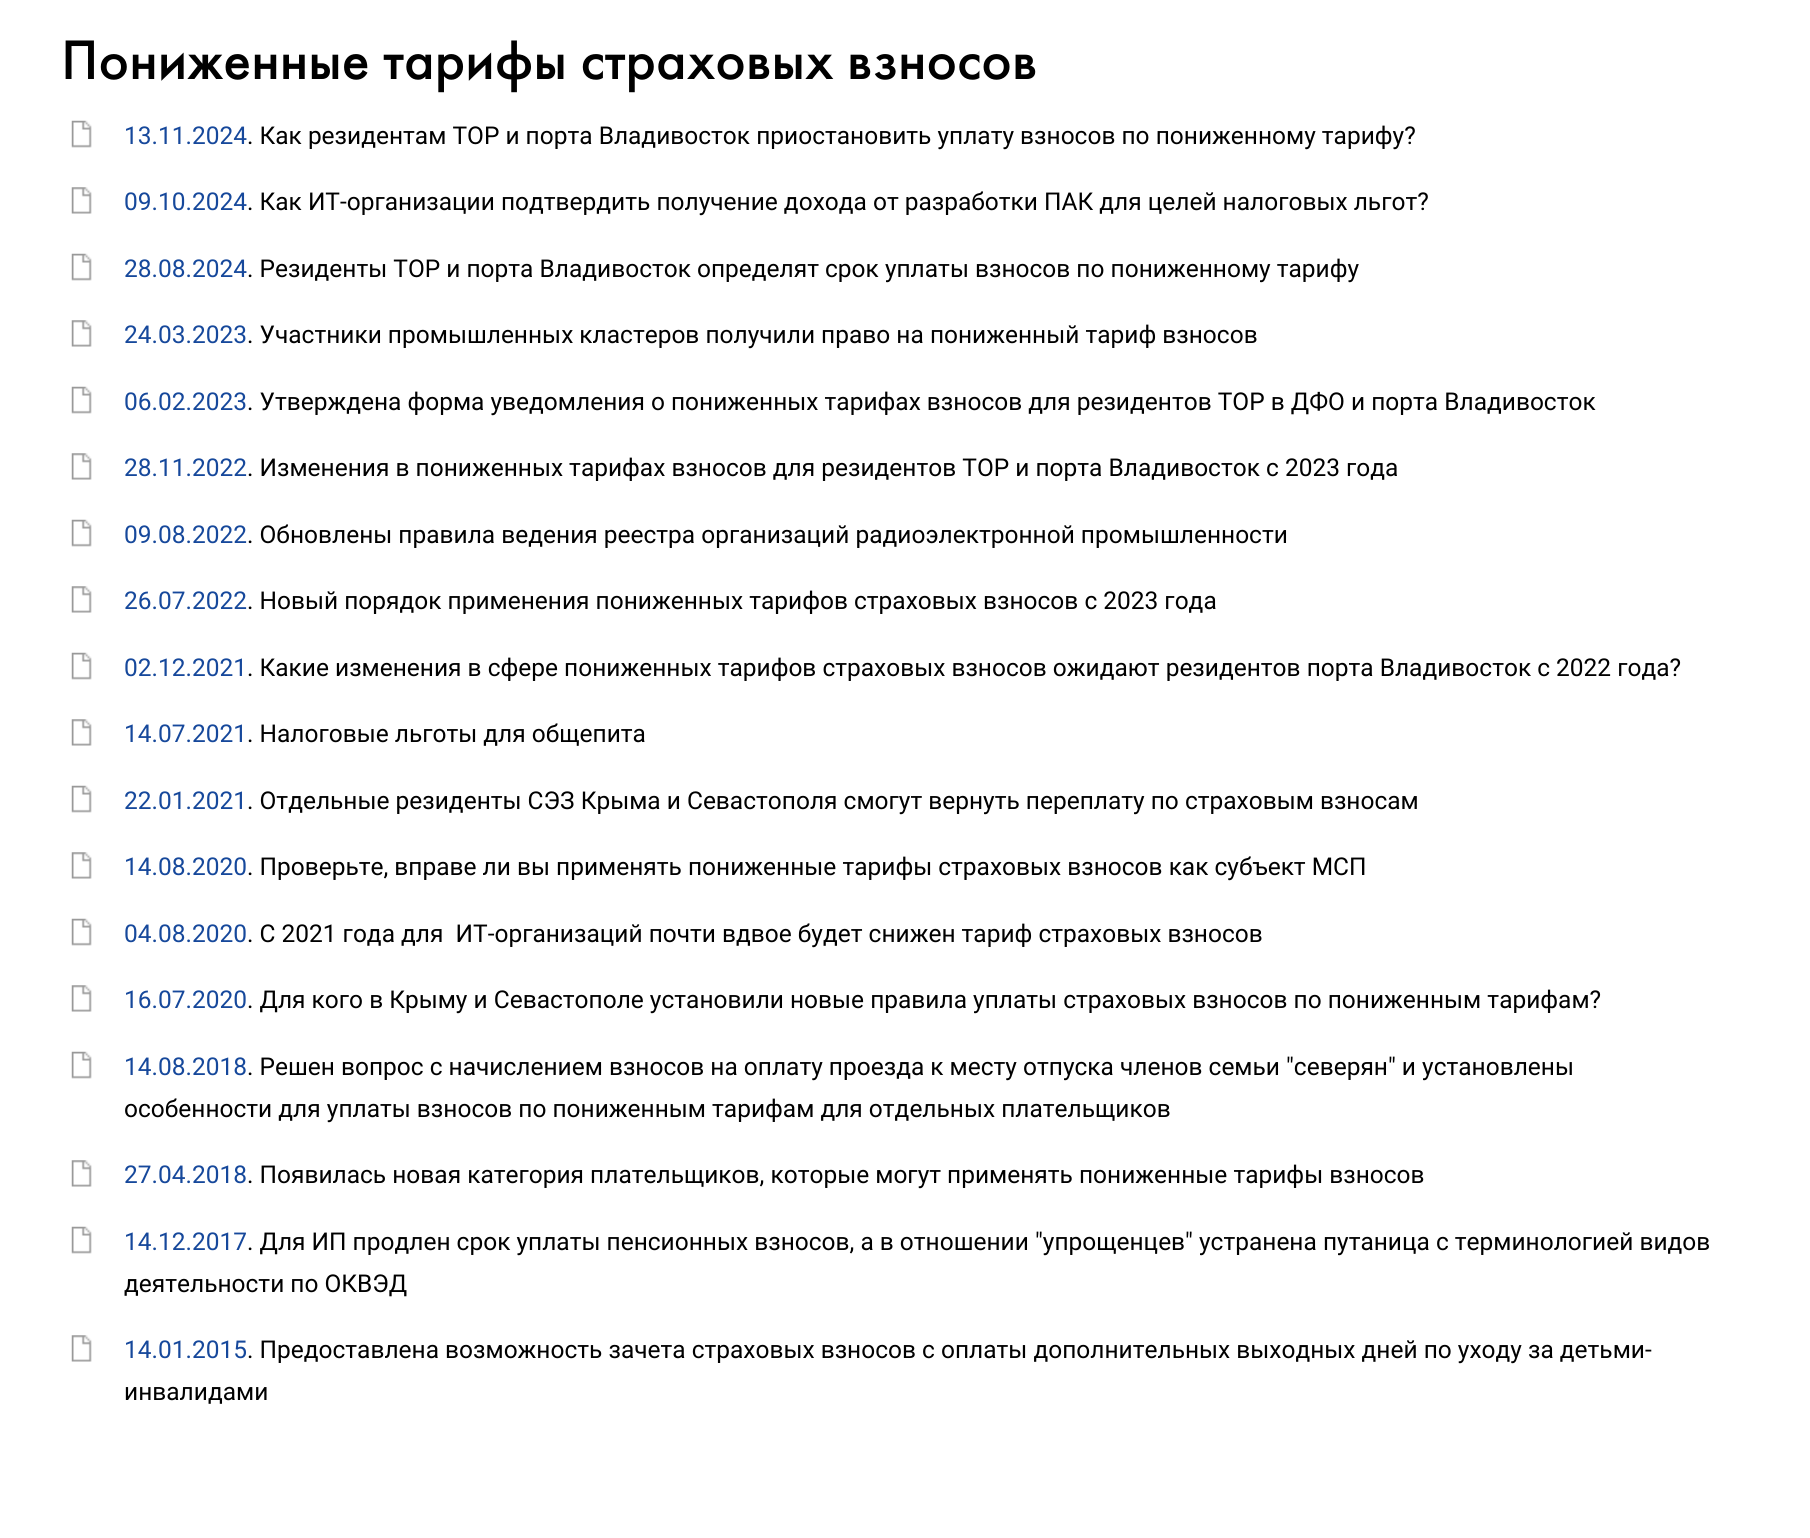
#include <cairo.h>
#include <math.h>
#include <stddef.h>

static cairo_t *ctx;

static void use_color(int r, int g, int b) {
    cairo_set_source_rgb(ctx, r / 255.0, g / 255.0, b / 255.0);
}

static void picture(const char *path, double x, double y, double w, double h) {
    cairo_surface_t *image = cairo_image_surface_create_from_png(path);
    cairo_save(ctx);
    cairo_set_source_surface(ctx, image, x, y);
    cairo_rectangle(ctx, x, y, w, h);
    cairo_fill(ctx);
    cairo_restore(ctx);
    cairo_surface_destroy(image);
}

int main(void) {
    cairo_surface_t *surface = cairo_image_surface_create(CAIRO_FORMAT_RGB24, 1810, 1538);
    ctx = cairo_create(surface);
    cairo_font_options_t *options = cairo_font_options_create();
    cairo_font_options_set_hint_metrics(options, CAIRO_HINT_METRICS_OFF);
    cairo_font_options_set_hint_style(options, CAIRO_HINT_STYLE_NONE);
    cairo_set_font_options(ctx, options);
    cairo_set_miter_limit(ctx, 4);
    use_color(255, 255, 255);
    cairo_paint(ctx);
    cairo_select_font_face(ctx, "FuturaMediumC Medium", CAIRO_FONT_SLANT_NORMAL, CAIRO_FONT_WEIGHT_NORMAL);
    cairo_set_font_size(ctx, 57.75);
    use_color(0, 0, 0);
    cairo_move_to(ctx, 61, 79);
    cairo_show_text(ctx, "Пониженные тарифы страховых взносов");
    picture("img1.png", 71, 120, 21, 28);
    cairo_select_font_face(ctx, "Roboto", CAIRO_FONT_SLANT_NORMAL, CAIRO_FONT_WEIGHT_NORMAL);
    cairo_set_font_size(ctx, 24.5);
    use_color(22, 72, 155);
    cairo_move_to(ctx, 124, 144);
    cairo_show_text(ctx, "13.11.2024");
    use_color(0, 0, 0);
    cairo_move_to(ctx, 247, 144);
    cairo_show_text(ctx, ". Как резидентам ТОР и порта Владивосток приостановить уплату взносов по пониженному тарифу?");
    picture("img2.png", 71, 187, 21, 27);
    use_color(22, 72, 155);
    cairo_move_to(ctx, 124, 210);
    cairo_show_text(ctx, "09.10.2024");
    use_color(0, 0, 0);
    cairo_move_to(ctx, 247, 210);
    cairo_show_text(ctx, ". Как ИТ-организации подтвердить получение дохода от разработки ПАК для целей налоговых льгот?");
    picture("img1.png", 71, 253, 21, 28);
    use_color(22, 72, 155);
    cairo_move_to(ctx, 124, 277);
    cairo_show_text(ctx, "28.08.2024");
    use_color(0, 0, 0);
    cairo_move_to(ctx, 247, 277);
    cairo_show_text(ctx, ". Резиденты ТОР и порта Владивосток определят срок уплаты взносов по пониженному тарифу");
    picture("img2.png", 71, 320, 21, 27);
    use_color(22, 72, 155);
    cairo_move_to(ctx, 124, 343);
    cairo_show_text(ctx, "24.03.2023");
    use_color(0, 0, 0);
    cairo_move_to(ctx, 247, 343);
    cairo_show_text(ctx, ". Участники промышленных кластеров получили право на пониженный тариф взносов");
    picture("img1.png", 71, 386, 21, 28);
    use_color(22, 72, 155);
    cairo_move_to(ctx, 124, 410);
    cairo_show_text(ctx, "06.02.2023");
    use_color(0, 0, 0);
    cairo_move_to(ctx, 247, 410);
    cairo_show_text(ctx, ". Утверждена форма уведомления о пониженных тарифах взносов для резидентов ТОР в ДФО и порта Владивосток");
    picture("img2.png", 71, 453, 21, 27);
    use_color(22, 72, 155);
    cairo_move_to(ctx, 124, 476);
    cairo_show_text(ctx, "28.11.2022");
    use_color(0, 0, 0);
    cairo_move_to(ctx, 247, 476);
    cairo_show_text(ctx, ". Изменения в пониженных тарифах взносов для резидентов ТОР и порта Владивосток с 2023 года");
    picture("img1.png", 71, 519, 21, 28);
    use_color(22, 72, 155);
    cairo_move_to(ctx, 124, 543);
    cairo_show_text(ctx, "09.08.2022");
    use_color(0, 0, 0);
    cairo_move_to(ctx, 247, 543);
    cairo_show_text(ctx, ". Обновлены правила ведения реестра организаций радиоэлектронной промышленности");
    picture("img2.png", 71, 586, 21, 27);
    use_color(22, 72, 155);
    cairo_move_to(ctx, 124, 609);
    cairo_show_text(ctx, "26.07.2022");
    use_color(0, 0, 0);
    cairo_move_to(ctx, 247, 609);
    cairo_show_text(ctx, ". Новый порядок применения пониженных тарифов страховых взносов с 2023 года");
    picture("img1.png", 71, 652, 21, 28);
    use_color(22, 72, 155);
    cairo_move_to(ctx, 124, 676);
    cairo_show_text(ctx, "02.12.2021");
    use_color(0, 0, 0);
    cairo_move_to(ctx, 247, 676);
    cairo_show_text(ctx, ". Какие изменения в сфере пониженных тарифов страховых взносов ожидают резидентов порта Владивосток с 2022 года?");
    picture("img2.png", 71, 719, 21, 27);
    use_color(22, 72, 155);
    cairo_move_to(ctx, 124, 742);
    cairo_show_text(ctx, "14.07.2021");
    use_color(0, 0, 0);
    cairo_move_to(ctx, 247, 742);
    cairo_show_text(ctx, ". Налоговые льготы для общепита");
    picture("img1.png", 71, 785, 21, 28);
    use_color(22, 72, 155);
    cairo_move_to(ctx, 124, 809);
    cairo_show_text(ctx, "22.01.2021");
    use_color(0, 0, 0);
    cairo_move_to(ctx, 247, 809);
    cairo_show_text(ctx, ". Отдельные резиденты СЭЗ Крыма и Севастополя смогут вернуть переплату по страховым взносам");
    picture("img2.png", 71, 852, 21, 27);
    use_color(22, 72, 155);
    cairo_move_to(ctx, 124, 875);
    cairo_show_text(ctx, "14.08.2020");
    use_color(0, 0, 0);
    cairo_move_to(ctx, 247, 875);
    cairo_show_text(ctx, ". Проверьте, вправе ли вы применять пониженные тарифы страховых взносов как субъект МСП");
    picture("img1.png", 71, 918, 21, 28);
    use_color(22, 72, 155);
    cairo_move_to(ctx, 124, 942);
    cairo_show_text(ctx, "04.08.2020");
    use_color(0, 0, 0);
    cairo_move_to(ctx, 247, 942);
    cairo_show_text(ctx, ". С 2021 года для  ИТ-организаций почти вдвое будет снижен тариф страховых взносов");
    picture("img2.png", 71, 985, 21, 27);
    use_color(22, 72, 155);
    cairo_move_to(ctx, 124, 1008);
    cairo_show_text(ctx, "16.07.2020");
    use_color(0, 0, 0);
    cairo_move_to(ctx, 247, 1008);
    cairo_show_text(ctx, ". Для кого в Крыму и Севастополе установили новые правила уплаты страховых взносов по пониженным тарифам?");
    picture("img1.png", 71, 1051, 21, 28);
    use_color(22, 72, 155);
    cairo_move_to(ctx, 124, 1075);
    cairo_show_text(ctx, "14.08.2018");
    use_color(0, 0, 0);
    cairo_move_to(ctx, 247, 1075);
    cairo_show_text(ctx, ". Решен вопрос с начислением взносов на оплату проезда к месту отпуска членов семьи \"северян\" и установлены");
    cairo_move_to(ctx, 124, 1117);
    cairo_show_text(ctx, "особенности для уплаты взносов по пониженным тарифам для отдельных плательщиков");
    picture("img2.png", 71, 1160, 21, 27);
    use_color(22, 72, 155);
    cairo_move_to(ctx, 124, 1183);
    cairo_show_text(ctx, "27.04.2018");
    use_color(0, 0, 0);
    cairo_move_to(ctx, 247, 1183);
    cairo_show_text(ctx, ". Появилась новая категория плательщиков, которые могут применять пониженные тарифы взносов");
    picture("img1.png", 71, 1226, 21, 28);
    use_color(22, 72, 155);
    cairo_move_to(ctx, 124, 1250);
    cairo_show_text(ctx, "14.12.2017");
    use_color(0, 0, 0);
    cairo_move_to(ctx, 247, 1250);
    cairo_show_text(ctx, ". Для ИП продлен срок уплаты пенсионных взносов, а в отношении \"упрощенцев\" устранена путаница с терминологией видов");
    cairo_move_to(ctx, 124, 1292);
    cairo_show_text(ctx, "деятельности по ОКВЭД");
    picture("img2.png", 71, 1335, 21, 27);
    use_color(22, 72, 155);
    cairo_move_to(ctx, 124, 1358);
    cairo_show_text(ctx, "14.01.2015");
    use_color(0, 0, 0);
    cairo_move_to(ctx, 247, 1358);
    cairo_show_text(ctx, ". Предоставлена возможность зачета страховых взносов с оплаты дополнительных выходных дней по уходу за детьми-");
    cairo_move_to(ctx, 124, 1400);
    cairo_show_text(ctx, "инвалидами");
    cairo_surface_write_to_png(surface, "result.png");
    cairo_font_options_destroy(options);
    cairo_destroy(ctx);
    cairo_surface_destroy(surface);
    return 0;
}
